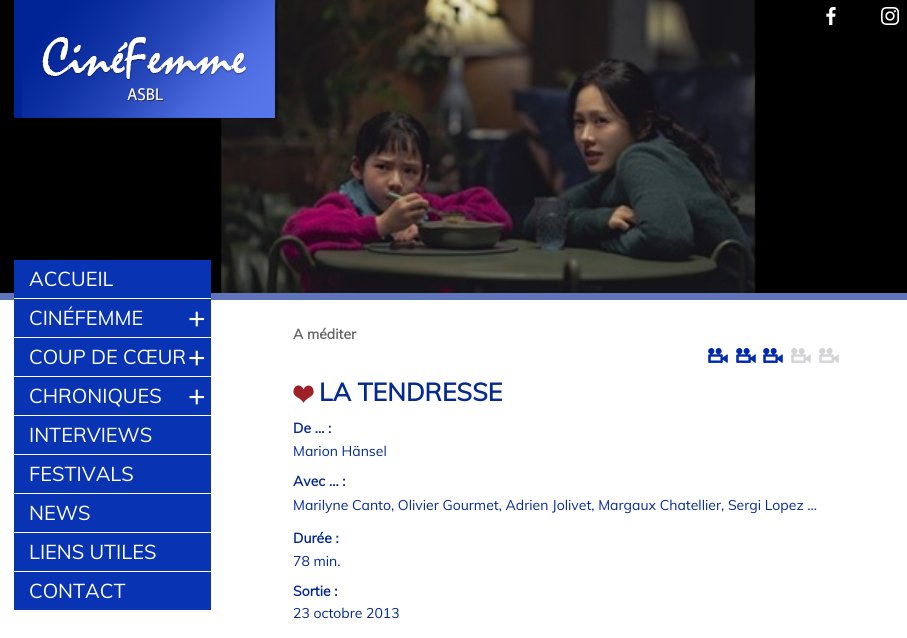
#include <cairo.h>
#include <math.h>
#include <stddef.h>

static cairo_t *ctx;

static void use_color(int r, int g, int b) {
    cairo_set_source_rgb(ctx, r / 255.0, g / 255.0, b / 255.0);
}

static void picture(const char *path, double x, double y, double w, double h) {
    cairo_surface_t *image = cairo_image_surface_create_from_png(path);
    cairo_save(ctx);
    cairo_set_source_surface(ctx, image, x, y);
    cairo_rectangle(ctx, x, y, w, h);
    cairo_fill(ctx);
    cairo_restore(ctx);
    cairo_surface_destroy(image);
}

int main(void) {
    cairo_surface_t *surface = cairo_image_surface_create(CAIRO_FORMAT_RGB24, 907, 638);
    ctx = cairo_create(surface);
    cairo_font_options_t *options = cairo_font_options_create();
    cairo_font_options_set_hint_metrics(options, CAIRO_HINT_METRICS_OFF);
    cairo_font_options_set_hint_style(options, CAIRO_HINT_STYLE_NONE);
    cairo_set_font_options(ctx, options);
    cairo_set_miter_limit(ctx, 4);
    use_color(255, 255, 255);
    cairo_paint(ctx);
    picture("img1.png", 0, 0, 907, 293);
    use_color(94, 117, 185);
    cairo_rectangle(ctx, 0, 293, 907, 7);
    cairo_fill(ctx);
    picture("img2.png", 14, 0, 265, 119);
    picture("img3.png", 826, 7, 10, 18);
    picture("img4.png", 881, 7, 18, 18);
    use_color(8, 51, 179);
    cairo_rectangle(ctx, 14, 260, 197, 38);
    cairo_fill(ctx);
    use_color(255, 255, 255);
    cairo_rectangle(ctx, 14, 298, 197, 1);
    cairo_fill(ctx);
    cairo_select_font_face(ctx, "Muli", CAIRO_FONT_SLANT_NORMAL, CAIRO_FONT_WEIGHT_NORMAL);
    cairo_set_font_size(ctx, 20);
    cairo_move_to(ctx, 29, 286);
    cairo_show_text(ctx, "ACCUEIL");
    use_color(8, 51, 179);
    cairo_rectangle(ctx, 14, 299, 197, 38);
    cairo_fill(ctx);
    use_color(255, 255, 255);
    cairo_move_to(ctx, 29, 325);
    cairo_show_text(ctx, "CINÉFEMME");
    cairo_select_font_face(ctx, "Liberation Sans", CAIRO_FONT_SLANT_NORMAL, CAIRO_FONT_WEIGHT_NORMAL);
    cairo_set_font_size(ctx, 30);
    cairo_move_to(ctx, 188, 329);
    cairo_show_text(ctx, "+");
    use_color(8, 51, 179);
    cairo_rectangle(ctx, 14, 338, 197, 38);
    cairo_fill(ctx);
    cairo_select_font_face(ctx, "Muli", CAIRO_FONT_SLANT_NORMAL, CAIRO_FONT_WEIGHT_NORMAL);
    cairo_set_font_size(ctx, 20);
    use_color(255, 255, 255);
    cairo_move_to(ctx, 29, 364);
    cairo_show_text(ctx, "COUP DE CŒUR");
    cairo_select_font_face(ctx, "Liberation Sans", CAIRO_FONT_SLANT_NORMAL, CAIRO_FONT_WEIGHT_NORMAL);
    cairo_set_font_size(ctx, 30);
    cairo_move_to(ctx, 188, 368);
    cairo_show_text(ctx, "+");
    use_color(8, 51, 179);
    cairo_rectangle(ctx, 14, 377, 197, 38);
    cairo_fill(ctx);
    cairo_select_font_face(ctx, "Muli", CAIRO_FONT_SLANT_NORMAL, CAIRO_FONT_WEIGHT_NORMAL);
    cairo_set_font_size(ctx, 20);
    use_color(255, 255, 255);
    cairo_move_to(ctx, 29, 403);
    cairo_show_text(ctx, "CHRONIQUES");
    cairo_select_font_face(ctx, "Liberation Sans", CAIRO_FONT_SLANT_NORMAL, CAIRO_FONT_WEIGHT_NORMAL);
    cairo_set_font_size(ctx, 30);
    cairo_move_to(ctx, 188, 407);
    cairo_show_text(ctx, "+");
    use_color(8, 51, 179);
    cairo_rectangle(ctx, 14, 416, 197, 38);
    cairo_fill(ctx);
    cairo_select_font_face(ctx, "Muli", CAIRO_FONT_SLANT_NORMAL, CAIRO_FONT_WEIGHT_NORMAL);
    cairo_set_font_size(ctx, 20);
    use_color(255, 255, 255);
    cairo_move_to(ctx, 29, 442);
    cairo_show_text(ctx, "INTERVIEWS");
    use_color(8, 51, 179);
    cairo_rectangle(ctx, 14, 455, 197, 38);
    cairo_fill(ctx);
    use_color(255, 255, 255);
    cairo_move_to(ctx, 29, 481);
    cairo_show_text(ctx, "FESTIVALS");
    use_color(8, 51, 179);
    cairo_rectangle(ctx, 14, 494, 197, 38);
    cairo_fill(ctx);
    use_color(255, 255, 255);
    cairo_move_to(ctx, 29, 520);
    cairo_show_text(ctx, "NEWS");
    use_color(8, 51, 179);
    cairo_rectangle(ctx, 14, 533, 197, 38);
    cairo_fill(ctx);
    use_color(255, 255, 255);
    cairo_move_to(ctx, 29, 559);
    cairo_show_text(ctx, "LIENS UTILES");
    use_color(8, 51, 179);
    cairo_rectangle(ctx, 14, 572, 197, 38);
    cairo_fill(ctx);
    use_color(255, 255, 255);
    cairo_move_to(ctx, 29, 598);
    cairo_show_text(ctx, "CONTACT");
    cairo_select_font_face(ctx, "Muli", CAIRO_FONT_SLANT_NORMAL, CAIRO_FONT_WEIGHT_BOLD);
    cairo_set_font_size(ctx, 14);
    use_color(102, 102, 102);
    cairo_move_to(ctx, 293, 339);
    cairo_show_text(ctx, "A méditer");
    picture("img5.png", 708, 348, 20, 15);
    picture("img5.png", 736, 348, 20, 15);
    picture("img5.png", 763, 348, 20, 15);
    picture("img6.png", 791, 348, 20, 15);
    picture("img6.png", 819, 348, 20, 15);
    picture("img7.png", 293, 385, 21, 18);
    cairo_set_font_size(ctx, 25);
    use_color(5, 41, 146);
    cairo_move_to(ctx, 319, 401);
    cairo_show_text(ctx, "LA TENDRESSE");
    cairo_set_font_size(ctx, 14);
    cairo_move_to(ctx, 293, 433);
    cairo_show_text(ctx, "De ... :");
    cairo_select_font_face(ctx, "Muli", CAIRO_FONT_SLANT_NORMAL, CAIRO_FONT_WEIGHT_NORMAL);
    cairo_move_to(ctx, 293, 456);
    cairo_show_text(ctx, "Marion Hänsel");
    cairo_select_font_face(ctx, "Muli", CAIRO_FONT_SLANT_NORMAL, CAIRO_FONT_WEIGHT_BOLD);
    cairo_move_to(ctx, 293, 486);
    cairo_show_text(ctx, "Avec ... :");
    cairo_select_font_face(ctx, "Muli", CAIRO_FONT_SLANT_NORMAL, CAIRO_FONT_WEIGHT_NORMAL);
    cairo_move_to(ctx, 293, 510);
    cairo_show_text(ctx, "Marilyne Canto, Olivier Gourmet, Adrien Jolivet, Margaux Chatellier, Sergi Lopez ...");
    cairo_select_font_face(ctx, "Muli", CAIRO_FONT_SLANT_NORMAL, CAIRO_FONT_WEIGHT_BOLD);
    cairo_move_to(ctx, 293, 543);
    cairo_show_text(ctx, "Durée :");
    cairo_select_font_face(ctx, "Muli", CAIRO_FONT_SLANT_NORMAL, CAIRO_FONT_WEIGHT_NORMAL);
    cairo_move_to(ctx, 293, 566);
    cairo_show_text(ctx, "78 min.");
    cairo_select_font_face(ctx, "Muli", CAIRO_FONT_SLANT_NORMAL, CAIRO_FONT_WEIGHT_BOLD);
    cairo_move_to(ctx, 293, 596);
    cairo_show_text(ctx, "Sortie :");
    cairo_select_font_face(ctx, "Muli", CAIRO_FONT_SLANT_NORMAL, CAIRO_FONT_WEIGHT_NORMAL);
    cairo_move_to(ctx, 293, 618);
    cairo_show_text(ctx, "23 octobre 2013");
    cairo_surface_write_to_png(surface, "result.png");
    cairo_font_options_destroy(options);
    cairo_destroy(ctx);
    cairo_surface_destroy(surface);
    return 0;
}
